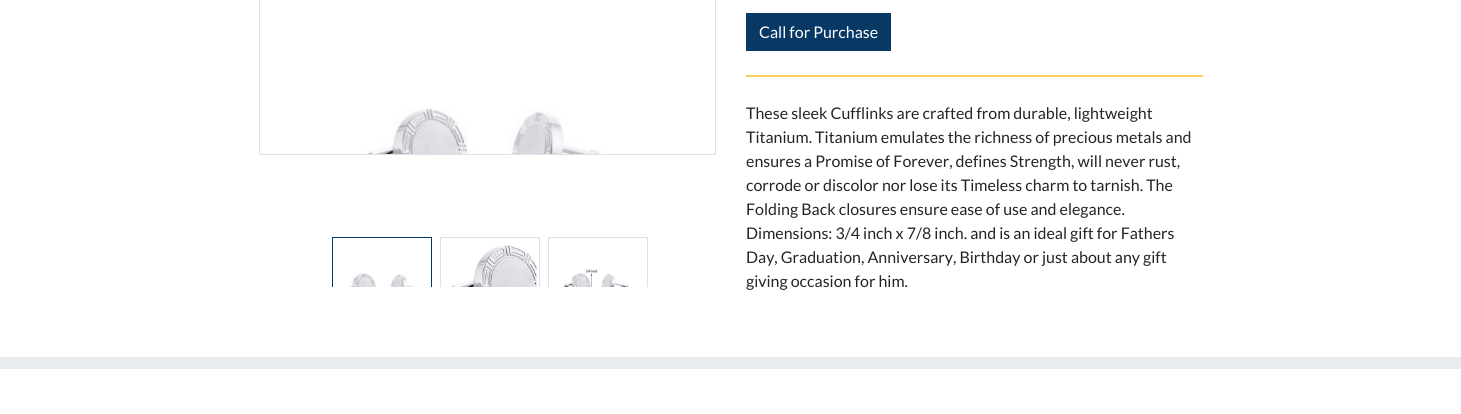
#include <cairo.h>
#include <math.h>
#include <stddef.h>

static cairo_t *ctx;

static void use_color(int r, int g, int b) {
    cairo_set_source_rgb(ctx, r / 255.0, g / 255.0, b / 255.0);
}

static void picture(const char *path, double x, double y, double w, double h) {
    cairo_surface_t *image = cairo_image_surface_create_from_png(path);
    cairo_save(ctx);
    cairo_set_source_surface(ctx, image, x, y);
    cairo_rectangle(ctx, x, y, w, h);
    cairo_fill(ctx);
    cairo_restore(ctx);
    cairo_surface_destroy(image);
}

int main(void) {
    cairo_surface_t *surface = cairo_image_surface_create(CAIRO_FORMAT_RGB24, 1461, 414);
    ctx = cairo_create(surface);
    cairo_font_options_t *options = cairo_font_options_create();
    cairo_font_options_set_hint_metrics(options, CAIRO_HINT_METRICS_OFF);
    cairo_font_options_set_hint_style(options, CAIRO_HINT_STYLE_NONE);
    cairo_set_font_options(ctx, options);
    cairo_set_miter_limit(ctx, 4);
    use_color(255, 255, 255);
    cairo_paint(ctx);
    cairo_rectangle(ctx, 259.5, -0.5, 456, 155);
    use_color(222, 226, 230);
    cairo_set_line_width(ctx, 1);
    cairo_stroke(ctx);
    picture("img1.png", 363, 108, 244, 46);
    cairo_save(ctx);
    cairo_rectangle(ctx, 259, 155, 457, 132);
    cairo_clip(ctx);
    cairo_rectangle(ctx, 332.5, 237.5, 99, 99);
    use_color(8, 57, 101);
    cairo_stroke(ctx);
    cairo_restore(ctx);
    picture("img2.png", 347, 273, 71, 14);
    cairo_save(ctx);
    cairo_rectangle(ctx, 259, 155, 457, 132);
    cairo_clip(ctx);
    cairo_rectangle(ctx, 440.5, 237.5, 99, 99);
    cairo_stroke(ctx);
    cairo_restore(ctx);
    picture("img3.png", 451, 245, 86, 42);
    cairo_save(ctx);
    cairo_rectangle(ctx, 259, 155, 457, 132);
    cairo_clip(ctx);
    cairo_rectangle(ctx, 548.5, 237.5, 99, 99);
    cairo_stroke(ctx);
    cairo_restore(ctx);
    picture("img4.png", 563, 268, 66, 19);
    use_color(8, 57, 101);
    cairo_rectangle(ctx, 746, 13, 145, 38);
    cairo_fill(ctx);
    cairo_select_font_face(ctx, "Lato", CAIRO_FONT_SLANT_NORMAL, CAIRO_FONT_WEIGHT_NORMAL);
    cairo_set_font_size(ctx, 16);
    use_color(255, 255, 255);
    cairo_move_to(ctx, 759, 38);
    cairo_show_text(ctx, "Call for Purchase");
    use_color(255, 207, 93);
    cairo_rectangle(ctx, 746, 75, 457, 2);
    cairo_fill(ctx);
    use_color(33, 37, 41);
    cairo_move_to(ctx, 746, 119);
    cairo_show_text(ctx, "These sleek Cufflinks are crafted from durable, lightweight");
    cairo_move_to(ctx, 746, 143);
    cairo_show_text(ctx, "Titanium. Titanium emulates the richness of precious metals and");
    cairo_move_to(ctx, 746, 167);
    cairo_show_text(ctx, "ensures a Promise of Forever, defines Strength, will never rust,");
    cairo_move_to(ctx, 746, 191);
    cairo_show_text(ctx, "corrode or discolor nor lose its Timeless charm to tarnish. The");
    cairo_move_to(ctx, 746, 215);
    cairo_show_text(ctx, "Folding Back closures ensure ease of use and elegance.");
    cairo_move_to(ctx, 746, 239);
    cairo_show_text(ctx, "Dimensions: 3/4 inch x 7/8 inch. and is an ideal gift for Fathers");
    cairo_move_to(ctx, 746, 263);
    cairo_show_text(ctx, "Day, Graduation, Anniversary, Birthday or just about any gift");
    cairo_move_to(ctx, 746, 287);
    cairo_show_text(ctx, "giving occasion for him.");
    use_color(233, 236, 239);
    cairo_rectangle(ctx, 0, 357, 1461, 12);
    cairo_fill(ctx);
    cairo_surface_write_to_png(surface, "result.png");
    cairo_font_options_destroy(options);
    cairo_destroy(ctx);
    cairo_surface_destroy(surface);
    return 0;
}
